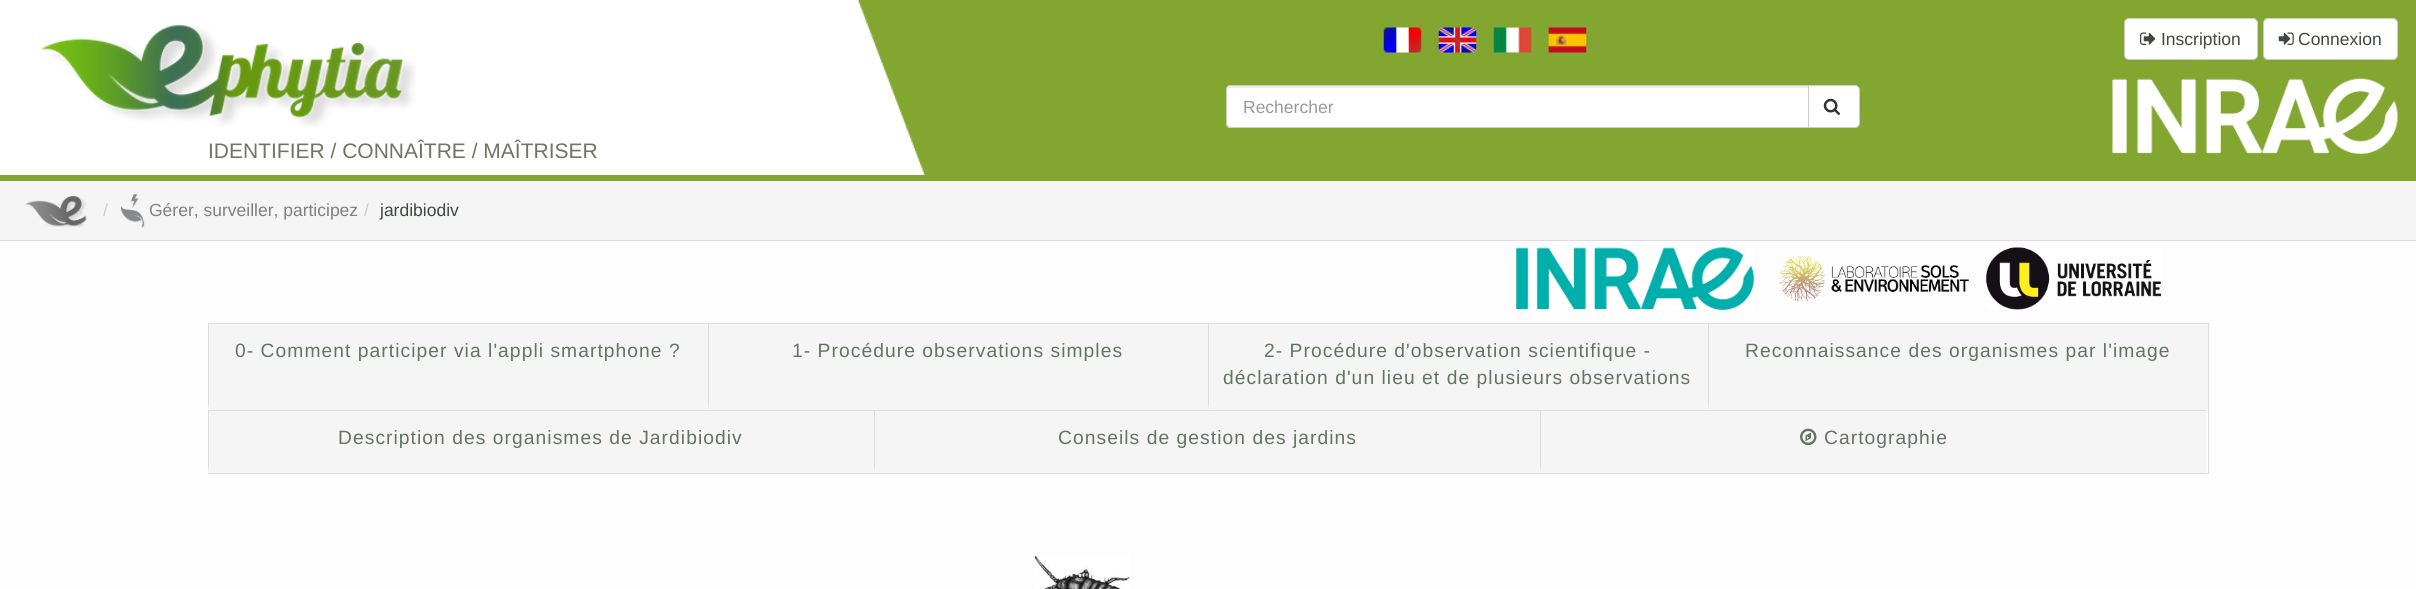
#include <cairo.h>
#include <math.h>
#include <stddef.h>

static cairo_t *ctx;

static void use_color(int r, int g, int b) {
    cairo_set_source_rgb(ctx, r / 255.0, g / 255.0, b / 255.0);
}

static void spaced_text(double x, double y, const char *s, double letter, double word) {
    cairo_move_to(ctx, x, y);
    while (*s) {
        char ch[5] = {0};
        int n = 0;
        do ch[n++] = *s++; while ((*s & 0xC0) == 0x80);
        cairo_show_text(ctx, ch);
        cairo_rel_move_to(ctx, letter + word * (*ch == ' '), 0);
    }
}

static void round_rect(double x, double y, double w, double h, double r) {
    cairo_new_sub_path(ctx);
    cairo_arc(ctx, x + w - r, y + h - r, r, 0, M_PI / 2);
    cairo_arc(ctx, x + r, y + h - r, r, M_PI / 2, M_PI);
    cairo_arc(ctx, x + r, y + r, r, M_PI, 1.5 * M_PI);
    cairo_arc(ctx, x + w - r, y + r, r, 1.5 * M_PI, 2 * M_PI);
    cairo_close_path(ctx);
}

static void picture(const char *path, double x, double y, double w, double h) {
    cairo_surface_t *image = cairo_image_surface_create_from_png(path);
    cairo_save(ctx);
    cairo_set_source_surface(ctx, image, x, y);
    cairo_rectangle(ctx, x, y, w, h);
    cairo_fill(ctx);
    cairo_restore(ctx);
    cairo_surface_destroy(image);
}

int main(void) {
    cairo_surface_t *surface = cairo_image_surface_create(CAIRO_FORMAT_RGB24, 2416, 589);
    ctx = cairo_create(surface);
    cairo_font_options_t *options = cairo_font_options_create();
    cairo_font_options_set_hint_metrics(options, CAIRO_HINT_METRICS_OFF);
    cairo_font_options_set_hint_style(options, CAIRO_HINT_STYLE_NONE);
    cairo_set_font_options(ctx, options);
    cairo_set_miter_limit(ctx, 4);
    use_color(253, 253, 253);
    cairo_paint(ctx);
    use_color(130, 166, 47);
    cairo_rectangle(ctx, 0, 0, 2416, 181);
    cairo_fill(ctx);
    picture("img1.png", 805, 0, 121, 175);
    picture("img2.png", 1383, 27, 39, 26);
    picture("img3.png", 1438, 27, 39, 26);
    picture("img4.png", 1493, 27, 39, 26);
    picture("img5.png", 1548, 27, 39, 26);
    use_color(255, 255, 255);
    round_rect(2124.5, 18.5, 133, 41, 4.5);
    cairo_fill_preserve(ctx);
    use_color(204, 204, 204);
    cairo_set_line_width(ctx, 1);
    cairo_stroke(ctx);
    picture("img6.png", 2140, 32, 16, 13);
    cairo_select_font_face(ctx, "Liberation Sans", CAIRO_FONT_SLANT_NORMAL, CAIRO_FONT_WEIGHT_NORMAL);
    cairo_set_font_size(ctx, 17.5);
    use_color(65, 72, 65);
    cairo_move_to(ctx, 2161, 45);
    cairo_show_text(ctx, "Inscription");
    use_color(255, 255, 255);
    round_rect(2263.5, 18.5, 134, 41, 4.5);
    cairo_fill_preserve(ctx);
    use_color(204, 204, 204);
    cairo_stroke(ctx);
    picture("img7.png", 2278, 32, 16, 13);
    use_color(65, 72, 65);
    cairo_move_to(ctx, 2298, 45);
    cairo_show_text(ctx, "Connexion");
    use_color(255, 255, 255);
    cairo_new_path(ctx);
    cairo_move_to(ctx, 1231, 85);
    cairo_line_to(ctx, 1809, 85);
    cairo_line_to(ctx, 1809, 128);
    cairo_line_to(ctx, 1231, 128);
    cairo_curve_to(ctx, 1228, 128, 1226, 126, 1226, 123);
    cairo_line_to(ctx, 1226, 90);
    cairo_curve_to(ctx, 1226, 87, 1228, 85, 1231, 85);
    cairo_close_path(ctx);
    cairo_fill(ctx);
    use_color(236, 236, 236);
    cairo_new_path(ctx);
    cairo_move_to(ctx, 1231, 88);
    cairo_line_to(ctx, 1808, 88);
    cairo_line_to(ctx, 1808, 86);
    cairo_line_to(ctx, 1232, 86);
    cairo_curve_to(ctx, 1229, 86, 1228, 88, 1228, 91);
    cairo_curve_to(ctx, 1228, 89, 1229, 88, 1231, 88);
    cairo_close_path(ctx);
    cairo_fill(ctx);
    cairo_new_path(ctx);
    cairo_move_to(ctx, 1231, 85.5);
    cairo_line_to(ctx, 1808.5, 85.5);
    cairo_line_to(ctx, 1808.5, 127.5);
    cairo_line_to(ctx, 1231, 127.5);
    cairo_curve_to(ctx, 1228.5, 127.5, 1226.5, 125.5, 1226.5, 123);
    cairo_line_to(ctx, 1226.5, 90);
    cairo_curve_to(ctx, 1226.5, 87.5, 1228.5, 85.5, 1231, 85.5);
    cairo_close_path(ctx);
    use_color(204, 204, 204);
    cairo_stroke(ctx);
    use_color(153, 153, 153);
    cairo_move_to(ctx, 1243, 113);
    cairo_show_text(ctx, "Rechercher");
    use_color(255, 255, 255);
    cairo_new_path(ctx);
    cairo_move_to(ctx, 1808.5, 85.5);
    cairo_line_to(ctx, 1855, 85.5);
    cairo_curve_to(ctx, 1857.5, 85.5, 1859.5, 87.5, 1859.5, 90);
    cairo_line_to(ctx, 1859.5, 123);
    cairo_curve_to(ctx, 1859.5, 125.5, 1857.5, 127.5, 1855, 127.5);
    cairo_line_to(ctx, 1808.5, 127.5);
    cairo_close_path(ctx);
    cairo_fill_preserve(ctx);
    use_color(204, 204, 204);
    cairo_stroke(ctx);
    picture("img8.png", 1823, 98, 17, 17);
    picture("img9.png", 2112, 78, 286, 76);
    use_color(255, 255, 255);
    cairo_rectangle(ctx, 0, 0, 805, 175);
    cairo_fill(ctx);
    picture("img10.png", 41, 24, 375, 103);
    cairo_set_font_size(ctx, 21);
    use_color(112, 116, 103);
    cairo_move_to(ctx, 208, 158);
    cairo_show_text(ctx, "IDENTIFIER / CONNAÎTRE / MAÎTRISER");
    use_color(221, 221, 221);
    cairo_rectangle(ctx, 0, 240, 2416, 1);
    cairo_fill(ctx);
    use_color(245, 245, 245);
    cairo_rectangle(ctx, 0, 181, 2416, 59);
    cairo_fill(ctx);
    picture("img11.png", 25, 195, 62, 32);
    cairo_set_font_size(ctx, 17.5);
    use_color(204, 204, 204);
    cairo_move_to(ctx, 103, 216);
    cairo_show_text(ctx, "/");
    picture("img12.png", 120, 193, 25, 35);
    use_color(128, 128, 128);
    cairo_move_to(ctx, 149, 216);
    cairo_show_text(ctx, "Gérer, surveiller, participez");
    use_color(204, 204, 204);
    cairo_move_to(ctx, 364, 216);
    cairo_show_text(ctx, "/");
    use_color(65, 72, 65);
    cairo_move_to(ctx, 380, 216);
    cairo_show_text(ctx, "jardibiodiv");
    picture("img13.png", 1516, 247, 238, 63);
    picture("img14.png", 1778, 255, 191, 47);
    picture("img15.png", 1986, 247, 175, 63);
    use_color(221, 221, 221);
    cairo_rectangle(ctx, 2208, 323, 1, 151);
    cairo_fill(ctx);
    cairo_rectangle(ctx, 208, 473, 2001, 1);
    cairo_fill(ctx);
    use_color(245, 245, 245);
    cairo_rectangle(ctx, 208, 324, 2000, 86);
    cairo_fill(ctx);
    use_color(221, 221, 221);
    cairo_rectangle(ctx, 208, 323, 2000, 1);
    cairo_fill(ctx);
    cairo_new_path(ctx);
    cairo_move_to(ctx, 208, 410);
    cairo_line_to(ctx, 208, 322);
    cairo_line_to(ctx, 209, 324);
    cairo_line_to(ctx, 209, 404);
    cairo_close_path(ctx);
    cairo_fill(ctx);
    cairo_set_font_size(ctx, 19.25);
    use_color(100, 115, 101);
    spaced_text(235, 357, "0- Comment participer via l'appli smartphone ?", 1.05, 0);
    use_color(221, 221, 221);
    cairo_new_path(ctx);
    cairo_move_to(ctx, 708, 410);
    cairo_line_to(ctx, 708, 322);
    cairo_line_to(ctx, 709, 324);
    cairo_line_to(ctx, 709, 404);
    cairo_close_path(ctx);
    cairo_fill(ctx);
    use_color(100, 115, 101);
    spaced_text(792, 357, "1- Procédure observations simples", 1.05, 0);
    use_color(221, 221, 221);
    cairo_new_path(ctx);
    cairo_move_to(ctx, 1208, 410);
    cairo_line_to(ctx, 1208, 322);
    cairo_line_to(ctx, 1209, 324);
    cairo_line_to(ctx, 1209, 404);
    cairo_close_path(ctx);
    cairo_fill(ctx);
    use_color(100, 115, 101);
    spaced_text(1264, 357, "2- Procédure d'observation scientifique -", 1.05, 0);
    spaced_text(1223, 384, "déclaration d'un lieu et de plusieurs observations", 1.05, 0);
    use_color(221, 221, 221);
    cairo_new_path(ctx);
    cairo_move_to(ctx, 1708, 410);
    cairo_line_to(ctx, 1708, 322);
    cairo_line_to(ctx, 1709, 324);
    cairo_line_to(ctx, 1709, 404);
    cairo_close_path(ctx);
    cairo_fill(ctx);
    use_color(100, 115, 101);
    spaced_text(1745, 357, "Reconnaissance des organismes par l'image", 1.05, 0);
    use_color(245, 245, 245);
    cairo_rectangle(ctx, 208, 411, 1998, 62);
    cairo_fill(ctx);
    use_color(221, 221, 221);
    cairo_rectangle(ctx, 208, 410, 1998, 1);
    cairo_fill(ctx);
    cairo_new_path(ctx);
    cairo_move_to(ctx, 208, 472);
    cairo_line_to(ctx, 208, 410);
    cairo_line_to(ctx, 209, 411);
    cairo_line_to(ctx, 209, 466);
    cairo_close_path(ctx);
    cairo_fill(ctx);
    use_color(100, 115, 101);
    spaced_text(338, 444, "Description des organismes de Jardibiodiv", 1.05, 0);
    use_color(221, 221, 221);
    cairo_new_path(ctx);
    cairo_move_to(ctx, 874, 472);
    cairo_line_to(ctx, 874, 410);
    cairo_line_to(ctx, 875, 411);
    cairo_line_to(ctx, 875, 466);
    cairo_close_path(ctx);
    cairo_fill(ctx);
    use_color(100, 115, 101);
    spaced_text(1058, 444, "Conseils de gestion des jardins", 1.05, 0);
    use_color(221, 221, 221);
    cairo_new_path(ctx);
    cairo_move_to(ctx, 1540, 472);
    cairo_line_to(ctx, 1540, 410);
    cairo_line_to(ctx, 1541, 411);
    cairo_line_to(ctx, 1541, 466);
    cairo_close_path(ctx);
    cairo_fill(ctx);
    picture("img16.png", 1800, 428, 17, 18);
    use_color(100, 115, 101);
    spaced_text(1824, 444, "Cartographie", 1.05, 0);
    picture("img17.png", 1034, 555, 96, 34);
    cairo_surface_write_to_png(surface, "result.png");
    cairo_font_options_destroy(options);
    cairo_destroy(ctx);
    cairo_surface_destroy(surface);
    return 0;
}
